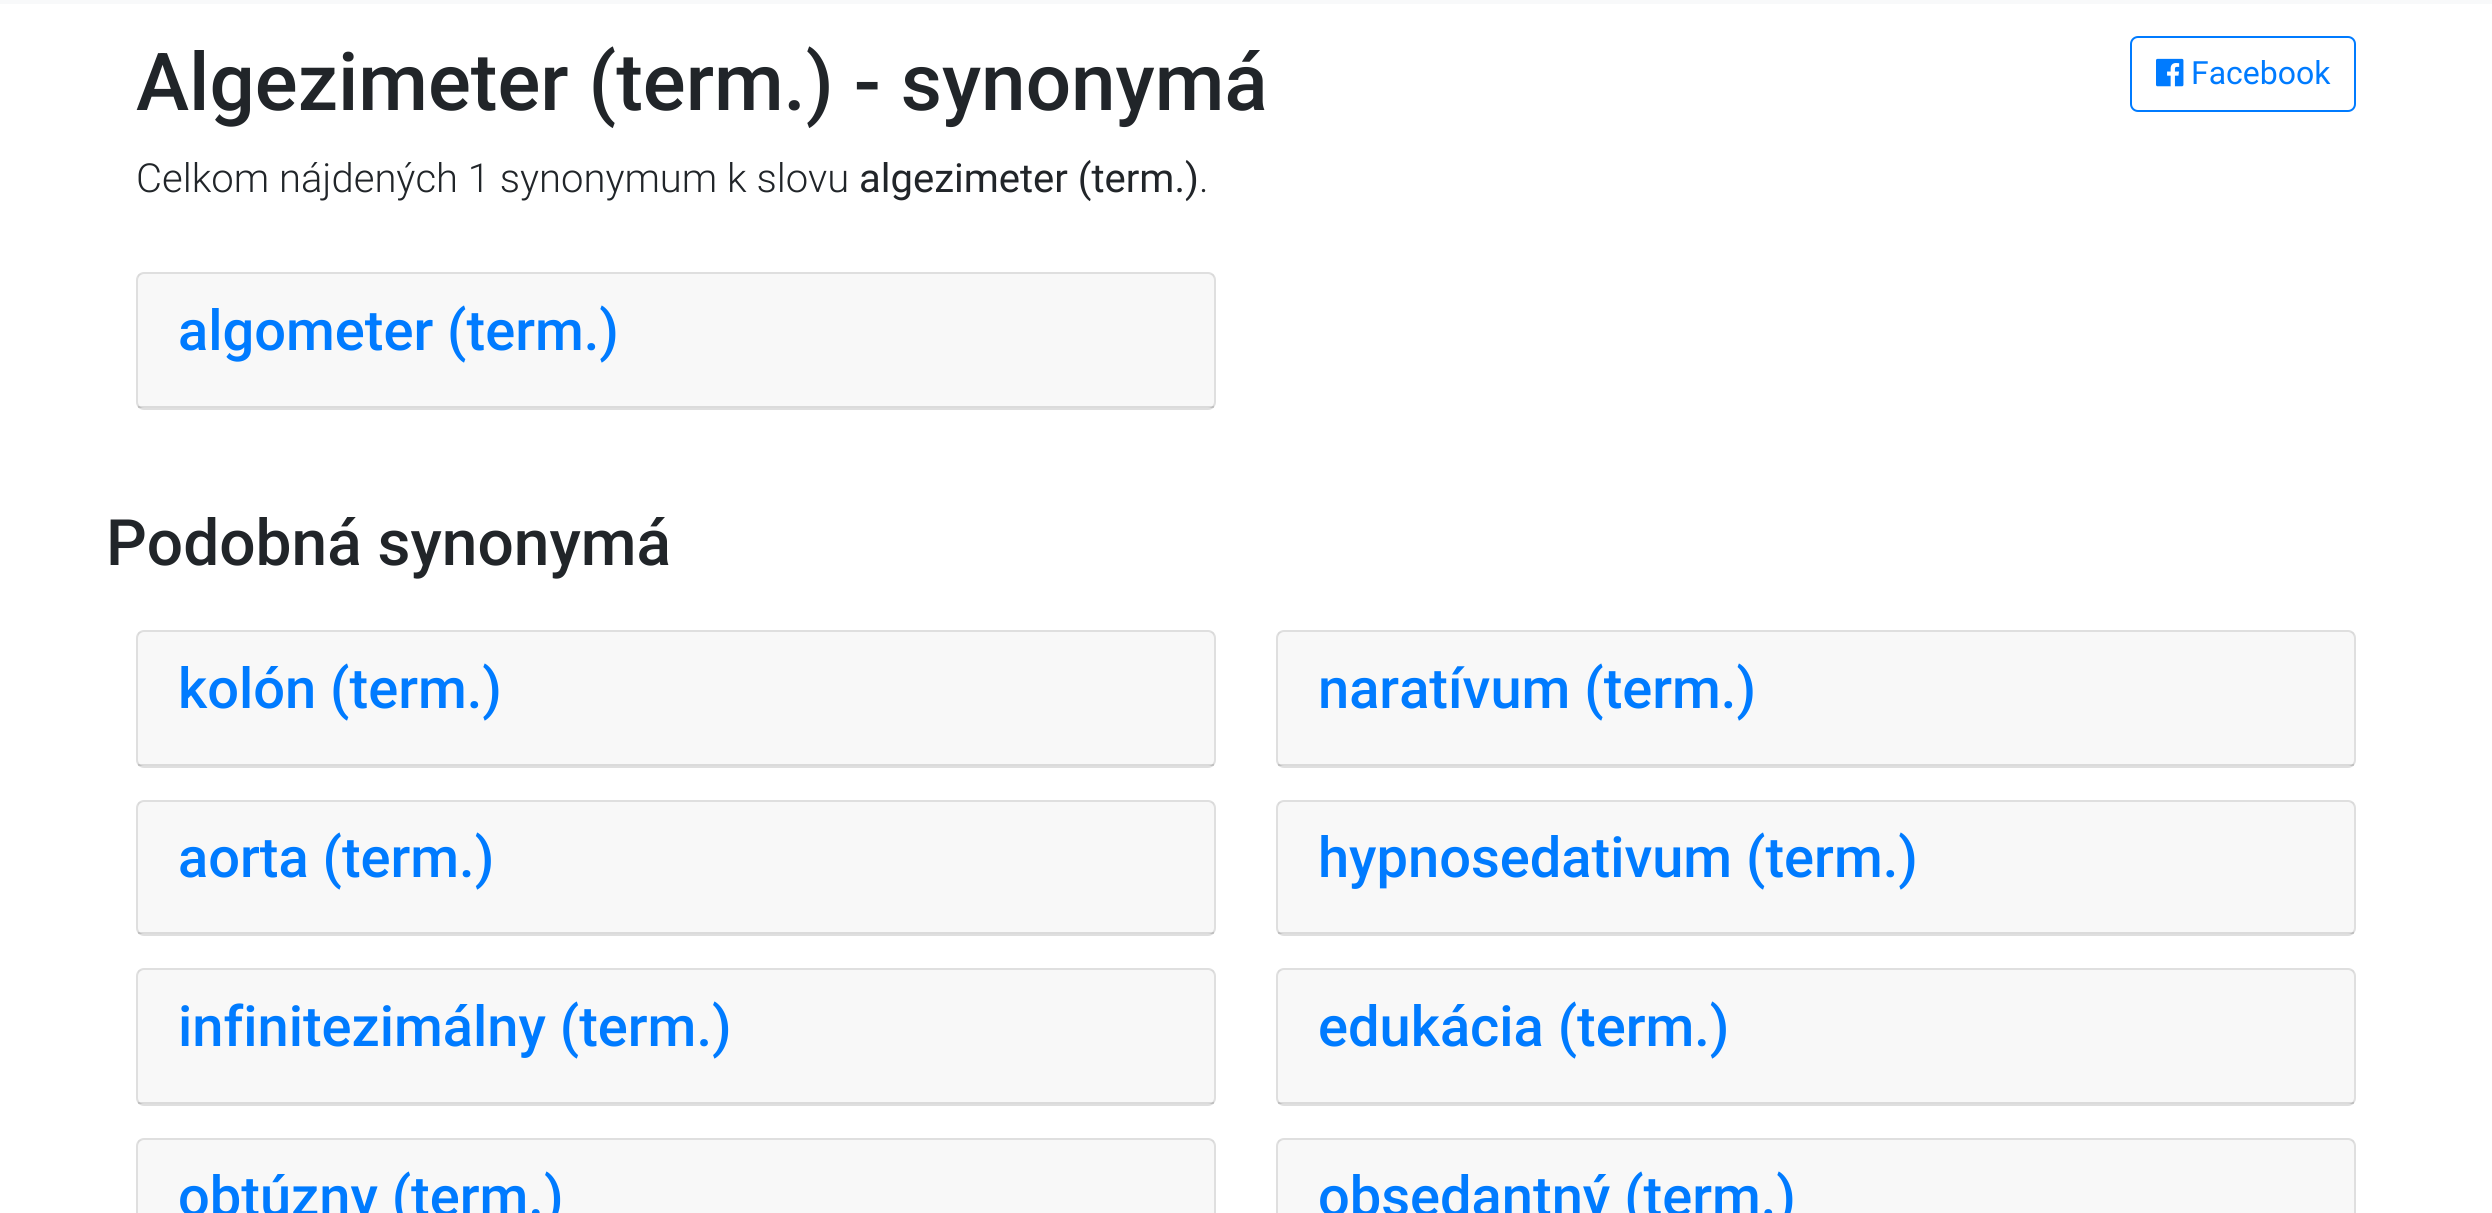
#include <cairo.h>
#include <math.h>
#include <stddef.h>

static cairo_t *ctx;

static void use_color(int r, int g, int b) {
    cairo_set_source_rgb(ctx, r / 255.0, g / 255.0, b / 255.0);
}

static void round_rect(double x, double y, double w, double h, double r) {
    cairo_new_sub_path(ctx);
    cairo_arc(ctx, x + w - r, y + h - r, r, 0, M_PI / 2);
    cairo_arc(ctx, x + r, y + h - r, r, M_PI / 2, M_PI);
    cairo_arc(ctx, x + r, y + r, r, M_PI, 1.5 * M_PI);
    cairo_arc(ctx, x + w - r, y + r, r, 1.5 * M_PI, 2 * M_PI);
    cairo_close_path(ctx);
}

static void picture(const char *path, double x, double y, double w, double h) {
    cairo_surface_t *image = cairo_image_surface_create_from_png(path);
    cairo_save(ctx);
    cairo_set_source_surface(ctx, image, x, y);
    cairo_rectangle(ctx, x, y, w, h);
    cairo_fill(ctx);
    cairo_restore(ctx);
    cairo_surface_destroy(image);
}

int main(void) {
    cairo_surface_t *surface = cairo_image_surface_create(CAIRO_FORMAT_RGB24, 2492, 1213);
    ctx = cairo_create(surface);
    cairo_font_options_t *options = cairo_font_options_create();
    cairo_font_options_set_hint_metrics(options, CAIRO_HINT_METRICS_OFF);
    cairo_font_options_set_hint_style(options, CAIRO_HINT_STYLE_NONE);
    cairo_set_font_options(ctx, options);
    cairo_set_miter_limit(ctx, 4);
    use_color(255, 255, 255);
    cairo_paint(ctx);
    use_color(248, 249, 250);
    cairo_rectangle(ctx, 0, 0, 2492, 4);
    cairo_fill(ctx);
    cairo_select_font_face(ctx, "Roboto Medium", CAIRO_FONT_SLANT_NORMAL, CAIRO_FONT_WEIGHT_NORMAL);
    cairo_set_font_size(ctx, 80);
    use_color(33, 37, 41);
    cairo_move_to(ctx, 136, 110);
    cairo_show_text(ctx, "Algezimeter (term.) - synonymá");
    round_rect(2131, 37, 224, 74, 7);
    use_color(0, 123, 255);
    cairo_stroke(ctx);
    picture("img1.png", 2156, 58, 28, 29);
    cairo_select_font_face(ctx, "Roboto", CAIRO_FONT_SLANT_NORMAL, CAIRO_FONT_WEIGHT_NORMAL);
    cairo_set_font_size(ctx, 32);
    cairo_move_to(ctx, 2191, 84);
    cairo_show_text(ctx, "Facebook");
    cairo_select_font_face(ctx, "Roboto Light", CAIRO_FONT_SLANT_NORMAL, CAIRO_FONT_WEIGHT_NORMAL);
    cairo_set_font_size(ctx, 40);
    use_color(33, 37, 41);
    cairo_move_to(ctx, 136, 192);
    cairo_show_text(ctx, "Celkom nájdených 1 synonymum k slovu");
    cairo_select_font_face(ctx, "Roboto", CAIRO_FONT_SLANT_NORMAL, CAIRO_FONT_WEIGHT_NORMAL);
    cairo_move_to(ctx, 859, 192);
    cairo_show_text(ctx, "algezimeter (term.)");
    cairo_select_font_face(ctx, "Roboto Light", CAIRO_FONT_SLANT_NORMAL, CAIRO_FONT_WEIGHT_NORMAL);
    cairo_move_to(ctx, 1199, 192);
    cairo_show_text(ctx, ".");
    round_rect(137, 273, 1078, 136, 7);
    use_color(223, 223, 223);
    cairo_stroke(ctx);
    cairo_set_source_rgba(ctx, 0, 0, 0, 0.03);
    cairo_rectangle(ctx, 138, 274, 1076, 134);
    cairo_fill(ctx);
    cairo_set_source_rgba(ctx, 0, 0, 0, 0.12);
    cairo_rectangle(ctx, 138, 406, 1076, 2);
    cairo_fill(ctx);
    cairo_select_font_face(ctx, "Roboto Medium", CAIRO_FONT_SLANT_NORMAL, CAIRO_FONT_WEIGHT_NORMAL);
    cairo_set_font_size(ctx, 56);
    use_color(0, 123, 255);
    cairo_move_to(ctx, 178, 350);
    cairo_show_text(ctx, "algometer (term.)");
    cairo_set_font_size(ctx, 64);
    use_color(33, 37, 41);
    cairo_move_to(ctx, 106, 565);
    cairo_show_text(ctx, "Podobná synonymá");
    round_rect(137, 631, 1078, 136, 7);
    use_color(223, 223, 223);
    cairo_stroke(ctx);
    cairo_set_source_rgba(ctx, 0, 0, 0, 0.03);
    cairo_rectangle(ctx, 138, 632, 1076, 134);
    cairo_fill(ctx);
    cairo_set_source_rgba(ctx, 0, 0, 0, 0.12);
    cairo_rectangle(ctx, 138, 764, 1076, 2);
    cairo_fill(ctx);
    cairo_set_font_size(ctx, 56);
    use_color(0, 123, 255);
    cairo_move_to(ctx, 178, 708);
    cairo_show_text(ctx, "kolón (term.)");
    round_rect(1277, 631, 1078, 136, 7);
    use_color(223, 223, 223);
    cairo_stroke(ctx);
    cairo_set_source_rgba(ctx, 0, 0, 0, 0.03);
    cairo_rectangle(ctx, 1278, 632, 1076, 134);
    cairo_fill(ctx);
    cairo_set_source_rgba(ctx, 0, 0, 0, 0.12);
    cairo_rectangle(ctx, 1278, 764, 1076, 2);
    cairo_fill(ctx);
    use_color(0, 123, 255);
    cairo_move_to(ctx, 1318, 708);
    cairo_show_text(ctx, "naratívum (term.)");
    round_rect(137, 801, 1078, 134, 7);
    use_color(223, 223, 223);
    cairo_stroke(ctx);
    cairo_set_source_rgba(ctx, 0, 0, 0, 0.03);
    cairo_rectangle(ctx, 138, 802, 1076, 132);
    cairo_fill(ctx);
    cairo_set_source_rgba(ctx, 0, 0, 0, 0.12);
    cairo_rectangle(ctx, 138, 932, 1076, 2);
    cairo_fill(ctx);
    use_color(0, 123, 255);
    cairo_move_to(ctx, 178, 877);
    cairo_show_text(ctx, "aorta (term.)");
    round_rect(1277, 801, 1078, 134, 7);
    use_color(223, 223, 223);
    cairo_stroke(ctx);
    cairo_set_source_rgba(ctx, 0, 0, 0, 0.03);
    cairo_rectangle(ctx, 1278, 802, 1076, 132);
    cairo_fill(ctx);
    cairo_set_source_rgba(ctx, 0, 0, 0, 0.12);
    cairo_rectangle(ctx, 1278, 932, 1076, 2);
    cairo_fill(ctx);
    use_color(0, 123, 255);
    cairo_move_to(ctx, 1318, 877);
    cairo_show_text(ctx, "hypnosedativum (term.)");
    round_rect(137, 969, 1078, 136, 7);
    use_color(223, 223, 223);
    cairo_stroke(ctx);
    cairo_set_source_rgba(ctx, 0, 0, 0, 0.03);
    cairo_rectangle(ctx, 138, 970, 1076, 134);
    cairo_fill(ctx);
    cairo_set_source_rgba(ctx, 0, 0, 0, 0.12);
    cairo_rectangle(ctx, 138, 1102, 1076, 2);
    cairo_fill(ctx);
    use_color(0, 123, 255);
    cairo_move_to(ctx, 178, 1046);
    cairo_show_text(ctx, "infinitezimálny (term.)");
    round_rect(1277, 969, 1078, 136, 7);
    use_color(223, 223, 223);
    cairo_stroke(ctx);
    cairo_set_source_rgba(ctx, 0, 0, 0, 0.03);
    cairo_rectangle(ctx, 1278, 970, 1076, 134);
    cairo_fill(ctx);
    cairo_set_source_rgba(ctx, 0, 0, 0, 0.12);
    cairo_rectangle(ctx, 1278, 1102, 1076, 2);
    cairo_fill(ctx);
    use_color(0, 123, 255);
    cairo_move_to(ctx, 1318, 1046);
    cairo_show_text(ctx, "edukácia (term.)");
    round_rect(137, 1139, 1078, 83, 7);
    use_color(223, 223, 223);
    cairo_stroke(ctx);
    cairo_set_source_rgba(ctx, 0, 0, 0, 0.03);
    cairo_rectangle(ctx, 138, 1140, 1076, 73);
    cairo_fill(ctx);
    use_color(0, 123, 255);
    cairo_move_to(ctx, 178, 1216);
    cairo_show_text(ctx, "obtúzny (term.)");
    round_rect(1277, 1139, 1078, 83, 7);
    use_color(223, 223, 223);
    cairo_stroke(ctx);
    cairo_set_source_rgba(ctx, 0, 0, 0, 0.03);
    cairo_rectangle(ctx, 1278, 1140, 1076, 73);
    cairo_fill(ctx);
    use_color(0, 123, 255);
    cairo_move_to(ctx, 1318, 1216);
    cairo_show_text(ctx, "obsedantný (term.)");
    cairo_surface_write_to_png(surface, "result.png");
    cairo_font_options_destroy(options);
    cairo_destroy(ctx);
    cairo_surface_destroy(surface);
    return 0;
}
